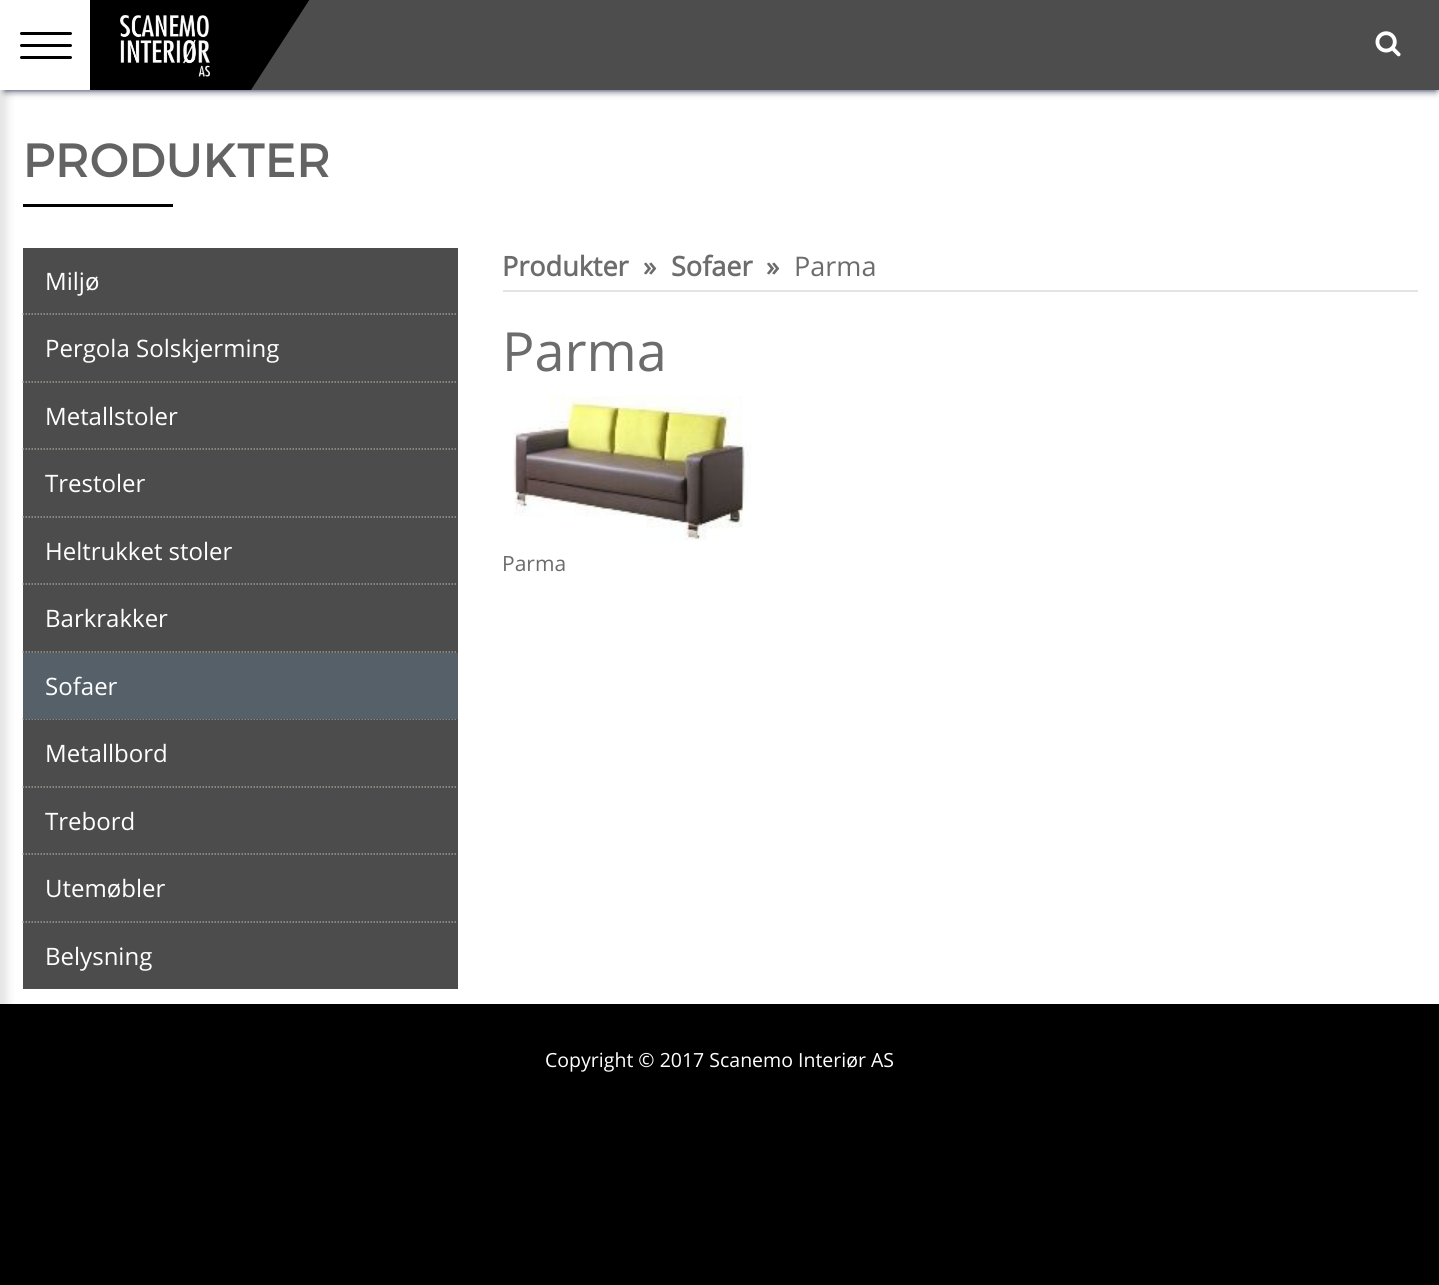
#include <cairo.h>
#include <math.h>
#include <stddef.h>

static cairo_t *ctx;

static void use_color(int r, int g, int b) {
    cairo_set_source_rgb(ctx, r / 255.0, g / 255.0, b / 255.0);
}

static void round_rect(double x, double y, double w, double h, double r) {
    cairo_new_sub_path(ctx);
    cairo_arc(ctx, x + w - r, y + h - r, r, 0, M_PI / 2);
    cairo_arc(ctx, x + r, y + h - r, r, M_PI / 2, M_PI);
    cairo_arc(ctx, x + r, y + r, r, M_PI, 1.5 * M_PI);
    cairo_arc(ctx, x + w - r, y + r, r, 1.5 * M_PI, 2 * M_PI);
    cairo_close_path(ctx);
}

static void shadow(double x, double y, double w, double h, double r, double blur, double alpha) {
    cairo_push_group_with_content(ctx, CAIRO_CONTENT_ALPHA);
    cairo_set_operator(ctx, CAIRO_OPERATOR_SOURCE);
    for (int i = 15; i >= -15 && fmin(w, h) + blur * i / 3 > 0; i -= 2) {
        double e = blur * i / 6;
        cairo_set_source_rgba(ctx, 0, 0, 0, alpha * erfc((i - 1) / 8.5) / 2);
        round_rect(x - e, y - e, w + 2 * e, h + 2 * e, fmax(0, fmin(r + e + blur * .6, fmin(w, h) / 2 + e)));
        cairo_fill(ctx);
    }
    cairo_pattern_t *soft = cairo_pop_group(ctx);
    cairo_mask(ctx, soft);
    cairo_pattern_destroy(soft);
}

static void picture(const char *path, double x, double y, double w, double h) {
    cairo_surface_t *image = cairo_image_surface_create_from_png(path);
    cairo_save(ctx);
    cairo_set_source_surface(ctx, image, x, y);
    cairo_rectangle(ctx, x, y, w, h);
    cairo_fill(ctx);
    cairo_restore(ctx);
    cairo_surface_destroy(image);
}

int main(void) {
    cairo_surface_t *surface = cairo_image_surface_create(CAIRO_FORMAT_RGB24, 1439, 1285);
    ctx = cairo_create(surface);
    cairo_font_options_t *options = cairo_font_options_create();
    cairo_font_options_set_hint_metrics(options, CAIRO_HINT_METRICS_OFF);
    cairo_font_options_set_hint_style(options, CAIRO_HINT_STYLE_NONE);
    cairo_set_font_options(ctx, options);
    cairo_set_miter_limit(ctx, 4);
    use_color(0, 0, 0);
    cairo_paint(ctx);
    use_color(255, 255, 255);
    cairo_rectangle(ctx, 0, 90, 1439, 914);
    cairo_fill(ctx);
    use_color(9, 20, 56);
    shadow(5, 9, 1431, 81, 0, 4, 1);
    use_color(77, 77, 77);
    cairo_rectangle(ctx, 251, 0, 1188, 90);
    cairo_fill(ctx);
    use_color(0, 0, 0);
    cairo_new_path(ctx);
    cairo_move_to(ctx, -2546, -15);
    cairo_line_to(ctx, 319, -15);
    cairo_line_to(ctx, 251, 90);
    cairo_line_to(ctx, -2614, 90);
    cairo_close_path(ctx);
    cairo_fill(ctx);
    picture("img1.png", 120, 15, 90, 62);
    picture("img2.png", 1375, 31, 26, 26);
    use_color(0, 0, 0);
    shadow(-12, 90, 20, 1181, 0, 4, 0.1);
    use_color(255, 255, 255);
    cairo_rectangle(ctx, 0, 0, 90, 90);
    cairo_fill(ctx);
    use_color(0, 0, 0);
    round_rect(20, 44, 52, 3, 1.5);
    cairo_fill(ctx);
    round_rect(20, 32, 52, 3, 1.5);
    cairo_fill(ctx);
    round_rect(20, 56, 52, 3, 1.5);
    cairo_fill(ctx);
    cairo_select_font_face(ctx, "Montserrat", CAIRO_FONT_SLANT_NORMAL, CAIRO_FONT_WEIGHT_NORMAL);
    cairo_set_font_size(ctx, 48);
    use_color(99, 99, 99);
    cairo_move_to(ctx, 23, 177);
    cairo_show_text(ctx, "PRODUKTER");
    use_color(0, 0, 0);
    cairo_rectangle(ctx, 23, 204, 150, 3);
    cairo_fill(ctx);
    use_color(76, 76, 76);
    cairo_rectangle(ctx, 23, 248, 435, 741);
    cairo_fill(ctx);
    cairo_new_path(ctx);
    cairo_move_to(ctx, 22.5, 314);
    cairo_line_to(ctx, 457.5, 314);
    use_color(157, 153, 145);
    cairo_set_line_width(ctx, 1.5);
    cairo_set_dash(ctx, (double[]){1.5, 1.5}, 2, 0);
    cairo_stroke(ctx);
    cairo_select_font_face(ctx, "Open Sans", CAIRO_FONT_SLANT_NORMAL, CAIRO_FONT_WEIGHT_NORMAL);
    cairo_set_font_size(ctx, 24);
    use_color(255, 255, 255);
    cairo_move_to(ctx, 45, 290);
    cairo_show_text(ctx, "Miljø");
    cairo_new_path(ctx);
    cairo_move_to(ctx, 22.5, 382);
    cairo_line_to(ctx, 457.5, 382);
    use_color(157, 153, 145);
    cairo_stroke(ctx);
    use_color(255, 255, 255);
    cairo_move_to(ctx, 45, 357);
    cairo_show_text(ctx, "Pergola Solskjerming");
    cairo_new_path(ctx);
    cairo_move_to(ctx, 22.5, 449);
    cairo_line_to(ctx, 457.5, 449);
    use_color(157, 153, 145);
    cairo_stroke(ctx);
    use_color(255, 255, 255);
    cairo_move_to(ctx, 45, 425);
    cairo_show_text(ctx, "Metallstoler");
    cairo_new_path(ctx);
    cairo_move_to(ctx, 22.5, 517);
    cairo_line_to(ctx, 457.5, 517);
    use_color(157, 153, 145);
    cairo_stroke(ctx);
    use_color(255, 255, 255);
    cairo_move_to(ctx, 45, 492);
    cairo_show_text(ctx, "Trestoler");
    cairo_new_path(ctx);
    cairo_move_to(ctx, 22.5, 584);
    cairo_line_to(ctx, 457.5, 584);
    use_color(157, 153, 145);
    cairo_stroke(ctx);
    use_color(255, 255, 255);
    cairo_move_to(ctx, 45, 560);
    cairo_show_text(ctx, "Heltrukket stoler");
    cairo_new_path(ctx);
    cairo_move_to(ctx, 22.5, 652);
    cairo_line_to(ctx, 457.5, 652);
    use_color(157, 153, 145);
    cairo_stroke(ctx);
    use_color(255, 255, 255);
    cairo_move_to(ctx, 45, 627);
    cairo_show_text(ctx, "Barkrakker");
    cairo_new_path(ctx);
    cairo_move_to(ctx, 22.5, 719);
    cairo_line_to(ctx, 457.5, 719);
    use_color(157, 153, 145);
    cairo_stroke(ctx);
    use_color(86, 96, 105);
    cairo_rectangle(ctx, 23, 653, 435, 66);
    cairo_fill(ctx);
    use_color(255, 255, 255);
    cairo_move_to(ctx, 45, 695);
    cairo_show_text(ctx, "Sofaer");
    cairo_new_path(ctx);
    cairo_move_to(ctx, 22.5, 787);
    cairo_line_to(ctx, 457.5, 787);
    use_color(157, 153, 145);
    cairo_stroke(ctx);
    use_color(255, 255, 255);
    cairo_move_to(ctx, 45, 762);
    cairo_show_text(ctx, "Metallbord");
    cairo_new_path(ctx);
    cairo_move_to(ctx, 22.5, 854);
    cairo_line_to(ctx, 457.5, 854);
    use_color(157, 153, 145);
    cairo_stroke(ctx);
    use_color(255, 255, 255);
    cairo_move_to(ctx, 45, 830);
    cairo_show_text(ctx, "Trebord");
    cairo_new_path(ctx);
    cairo_move_to(ctx, 22.5, 922);
    cairo_line_to(ctx, 457.5, 922);
    use_color(157, 153, 145);
    cairo_stroke(ctx);
    use_color(255, 255, 255);
    cairo_move_to(ctx, 45, 897);
    cairo_show_text(ctx, "Utemøbler");
    cairo_move_to(ctx, 45, 965);
    cairo_show_text(ctx, "Belysning");
    use_color(228, 228, 228);
    cairo_rectangle(ctx, 503, 290, 915, 2);
    cairo_fill(ctx);
    cairo_select_font_face(ctx, "Open Sans", CAIRO_FONT_SLANT_NORMAL, CAIRO_FONT_WEIGHT_BOLD);
    cairo_set_font_size(ctx, 27);
    use_color(108, 108, 108);
    cairo_move_to(ctx, 502, 276);
    cairo_show_text(ctx, "Produkter");
    cairo_move_to(ctx, 643, 276);
    cairo_show_text(ctx, "»");
    cairo_move_to(ctx, 671, 276);
    cairo_show_text(ctx, "Sofaer");
    cairo_move_to(ctx, 766, 276);
    cairo_show_text(ctx, "»");
    cairo_select_font_face(ctx, "Open Sans", CAIRO_FONT_SLANT_NORMAL, CAIRO_FONT_WEIGHT_NORMAL);
    cairo_move_to(ctx, 794, 276);
    cairo_show_text(ctx, "Parma");
    cairo_set_font_size(ctx, 54);
    cairo_move_to(ctx, 502, 371);
    cairo_show_text(ctx, "Parma");
    picture("img3.png", 513, 396, 238, 145);
    cairo_set_font_size(ctx, 21);
    cairo_move_to(ctx, 502, 571);
    cairo_show_text(ctx, "Parma");
    cairo_set_font_size(ctx, 19.5);
    use_color(255, 255, 255);
    cairo_move_to(ctx, 545, 1067);
    cairo_show_text(ctx, "Copyright © 2017 Scanemo Interiør AS");
    cairo_surface_write_to_png(surface, "result.png");
    cairo_font_options_destroy(options);
    cairo_destroy(ctx);
    cairo_surface_destroy(surface);
    return 0;
}
